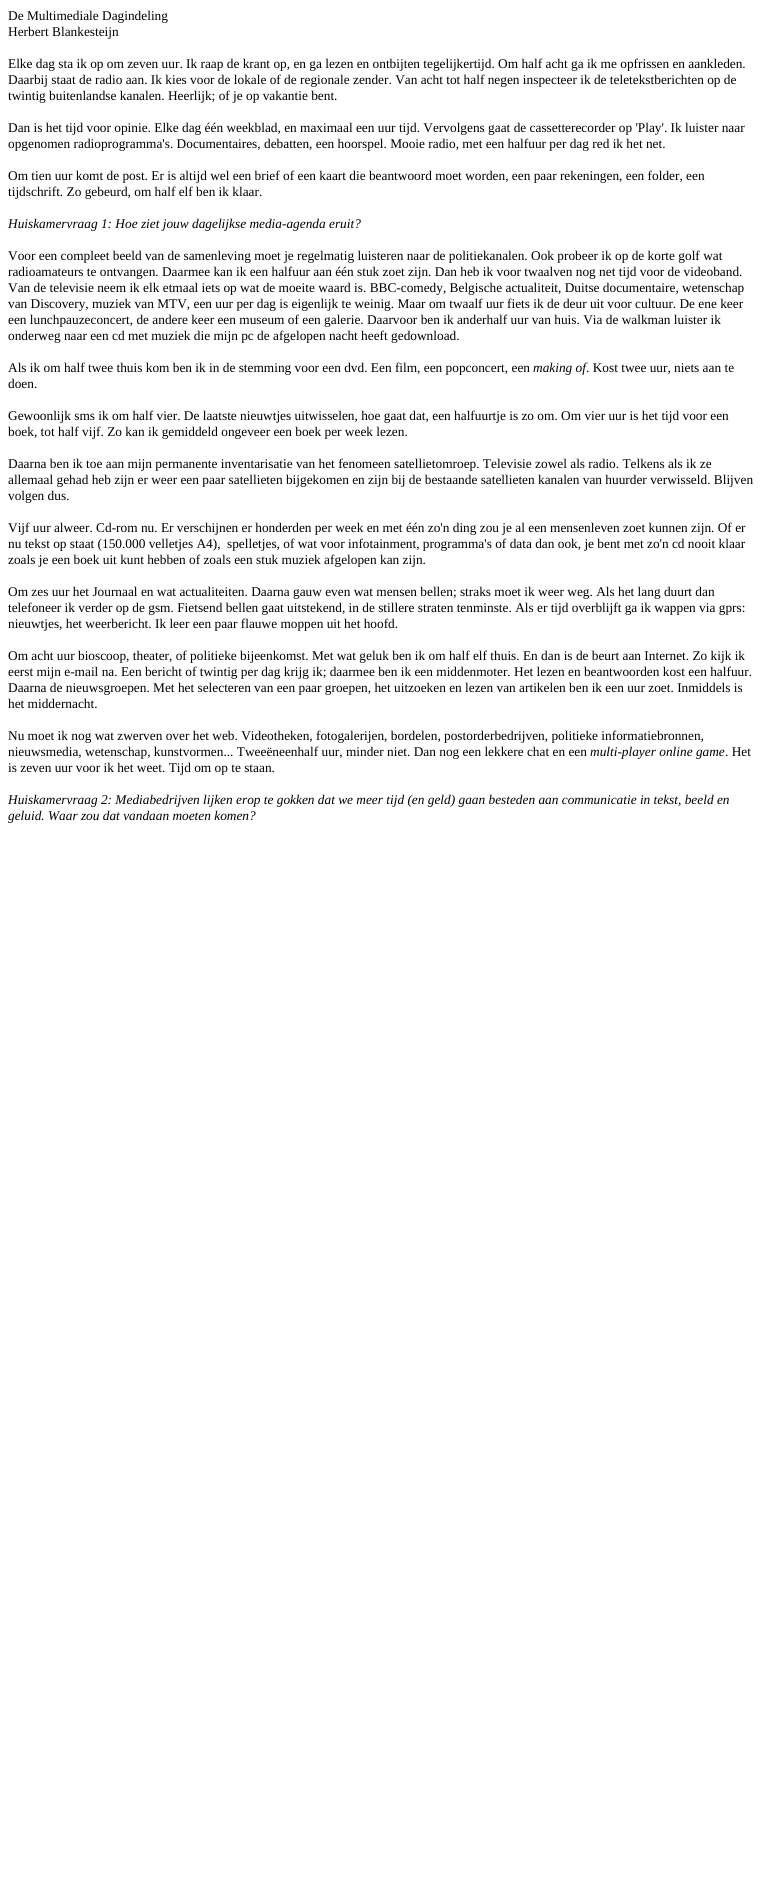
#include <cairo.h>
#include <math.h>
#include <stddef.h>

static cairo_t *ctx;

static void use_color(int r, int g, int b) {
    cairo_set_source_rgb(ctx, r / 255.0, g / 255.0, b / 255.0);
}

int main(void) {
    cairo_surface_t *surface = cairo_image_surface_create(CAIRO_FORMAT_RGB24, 764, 1893);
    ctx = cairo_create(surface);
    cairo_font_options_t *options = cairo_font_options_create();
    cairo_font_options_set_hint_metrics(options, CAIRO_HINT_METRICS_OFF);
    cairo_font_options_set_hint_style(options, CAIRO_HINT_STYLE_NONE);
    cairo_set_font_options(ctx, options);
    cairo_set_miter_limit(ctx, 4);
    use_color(255, 255, 255);
    cairo_paint(ctx);
    cairo_select_font_face(ctx, "Liberation Serif", CAIRO_FONT_SLANT_NORMAL, CAIRO_FONT_WEIGHT_NORMAL);
    cairo_set_font_size(ctx, 13.33);
    use_color(0, 0, 0);
    cairo_move_to(ctx, 8, 20);
    cairo_show_text(ctx, "De Multimediale Dagindeling");
    cairo_move_to(ctx, 8, 36);
    cairo_show_text(ctx, "Herbert Blankesteijn");
    cairo_move_to(ctx, 8, 68);
    cairo_show_text(ctx, "Elke dag sta ik op om zeven uur. Ik raap de krant op, en ga lezen en ontbijten tegelijkertijd. Om half acht ga ik me opfrissen en aankleden.");
    cairo_move_to(ctx, 8, 84);
    cairo_show_text(ctx, "Daarbij staat de radio aan. Ik kies voor de lokale of de regionale zender. Van acht tot half negen inspecteer ik de teletekstberichten op de");
    cairo_move_to(ctx, 8, 100);
    cairo_show_text(ctx, "twintig buitenlandse kanalen. Heerlijk; of je op vakantie bent.");
    cairo_move_to(ctx, 8, 132);
    cairo_show_text(ctx, "Dan is het tijd voor opinie. Elke dag één weekblad, en maximaal een uur tijd. Vervolgens gaat de cassetterecorder op 'Play'. Ik luister naar");
    cairo_move_to(ctx, 8, 148);
    cairo_show_text(ctx, "opgenomen radioprogramma's. Documentaires, debatten, een hoorspel. Mooie radio, met een halfuur per dag red ik het net.");
    cairo_move_to(ctx, 8, 180);
    cairo_show_text(ctx, "Om tien uur komt de post. Er is altijd wel een brief of een kaart die beantwoord moet worden, een paar rekeningen, een folder, een");
    cairo_move_to(ctx, 8, 196);
    cairo_show_text(ctx, "tijdschrift. Zo gebeurd, om half elf ben ik klaar.");
    cairo_select_font_face(ctx, "Liberation Serif", CAIRO_FONT_SLANT_ITALIC, CAIRO_FONT_WEIGHT_NORMAL);
    cairo_move_to(ctx, 8, 228);
    cairo_show_text(ctx, "Huiskamervraag 1: Hoe ziet jouw dagelijkse media-agenda eruit?");
    cairo_select_font_face(ctx, "Liberation Serif", CAIRO_FONT_SLANT_NORMAL, CAIRO_FONT_WEIGHT_NORMAL);
    cairo_move_to(ctx, 8, 260);
    cairo_show_text(ctx, "Voor een compleet beeld van de samenleving moet je regelmatig luisteren naar de politiekanalen. Ook probeer ik op de korte golf wat");
    cairo_move_to(ctx, 8, 276);
    cairo_show_text(ctx, "radioamateurs te ontvangen. Daarmee kan ik een halfuur aan één stuk zoet zijn. Dan heb ik voor twaalven nog net tijd voor de videoband.");
    cairo_move_to(ctx, 8, 292);
    cairo_show_text(ctx, "Van de televisie neem ik elk etmaal iets op wat de moeite waard is. BBC-comedy, Belgische actualiteit, Duitse documentaire, wetenschap");
    cairo_move_to(ctx, 8, 308);
    cairo_show_text(ctx, "van Discovery, muziek van MTV, een uur per dag is eigenlijk te weinig. Maar om twaalf uur fiets ik de deur uit voor cultuur. De ene keer");
    cairo_move_to(ctx, 8, 324);
    cairo_show_text(ctx, "een lunchpauzeconcert, de andere keer een museum of een galerie. Daarvoor ben ik anderhalf uur van huis. Via de walkman luister ik");
    cairo_move_to(ctx, 8, 340);
    cairo_show_text(ctx, "onderweg naar een cd met muziek die mijn pc de afgelopen nacht heeft gedownload.");
    cairo_move_to(ctx, 8, 372);
    cairo_show_text(ctx, "Als ik om half twee thuis kom ben ik in de stemming voor een dvd. Een film, een popconcert, een");
    cairo_select_font_face(ctx, "Liberation Serif", CAIRO_FONT_SLANT_ITALIC, CAIRO_FONT_WEIGHT_NORMAL);
    cairo_move_to(ctx, 533, 372);
    cairo_show_text(ctx, "making of");
    cairo_select_font_face(ctx, "Liberation Serif", CAIRO_FONT_SLANT_NORMAL, CAIRO_FONT_WEIGHT_NORMAL);
    cairo_move_to(ctx, 586, 372);
    cairo_show_text(ctx, ". Kost twee uur, niets aan te");
    cairo_move_to(ctx, 8, 388);
    cairo_show_text(ctx, "doen.");
    cairo_move_to(ctx, 8, 420);
    cairo_show_text(ctx, "Gewoonlijk sms ik om half vier. De laatste nieuwtjes uitwisselen, hoe gaat dat, een halfuurtje is zo om. Om vier uur is het tijd voor een");
    cairo_move_to(ctx, 8, 436);
    cairo_show_text(ctx, "boek, tot half vijf. Zo kan ik gemiddeld ongeveer een boek per week lezen.");
    cairo_move_to(ctx, 8, 468);
    cairo_show_text(ctx, "Daarna ben ik toe aan mijn permanente inventarisatie van het fenomeen satellietomroep. Televisie zowel als radio. Telkens als ik ze");
    cairo_move_to(ctx, 8, 484);
    cairo_show_text(ctx, "allemaal gehad heb zijn er weer een paar satellieten bijgekomen en zijn bij de bestaande satellieten kanalen van huurder verwisseld. Blijven");
    cairo_move_to(ctx, 8, 500);
    cairo_show_text(ctx, "volgen dus.");
    cairo_move_to(ctx, 8, 532);
    cairo_show_text(ctx, "Vijf uur alweer. Cd-rom nu. Er verschijnen er honderden per week en met één zo'n ding zou je al een mensenleven zoet kunnen zijn. Of er");
    cairo_move_to(ctx, 8, 548);
    cairo_show_text(ctx, "nu tekst op staat (150.000 velletjes A4),");
    cairo_move_to(ctx, 227, 548);
    cairo_show_text(ctx, "spelletjes, of wat voor infotainment, programma's of data dan ook, je bent met zo'n cd nooit klaar");
    cairo_move_to(ctx, 8, 564);
    cairo_show_text(ctx, "zoals je een boek uit kunt hebben of zoals een stuk muziek afgelopen kan zijn.");
    cairo_move_to(ctx, 8, 596);
    cairo_show_text(ctx, "Om zes uur het Journaal en wat actualiteiten. Daarna gauw even wat mensen bellen; straks moet ik weer weg. Als het lang duurt dan");
    cairo_move_to(ctx, 8, 612);
    cairo_show_text(ctx, "telefoneer ik verder op de gsm. Fietsend bellen gaat uitstekend, in de stillere straten tenminste. Als er tijd overblijft ga ik wappen via gprs:");
    cairo_move_to(ctx, 8, 628);
    cairo_show_text(ctx, "nieuwtjes, het weerbericht. Ik leer een paar flauwe moppen uit het hoofd.");
    cairo_move_to(ctx, 8, 660);
    cairo_show_text(ctx, "Om acht uur bioscoop, theater, of politieke bijeenkomst. Met wat geluk ben ik om half elf thuis. En dan is de beurt aan Internet. Zo kijk ik");
    cairo_move_to(ctx, 8, 676);
    cairo_show_text(ctx, "eerst mijn e-mail na. Een bericht of twintig per dag krijg ik; daarmee ben ik een middenmoter. Het lezen en beantwoorden kost een halfuur.");
    cairo_move_to(ctx, 8, 692);
    cairo_show_text(ctx, "Daarna de nieuwsgroepen. Met het selecteren van een paar groepen, het uitzoeken en lezen van artikelen ben ik een uur zoet. Inmiddels is");
    cairo_move_to(ctx, 8, 708);
    cairo_show_text(ctx, "het middernacht.");
    cairo_move_to(ctx, 8, 740);
    cairo_show_text(ctx, "Nu moet ik nog wat zwerven over het web. Videotheken, fotogalerijen, bordelen, postorderbedrijven, politieke informatiebronnen,");
    cairo_move_to(ctx, 8, 756);
    cairo_show_text(ctx, "nieuwsmedia, wetenschap, kunstvormen... Tweeëneenhalf uur, minder niet. Dan nog een lekkere chat en een");
    cairo_select_font_face(ctx, "Liberation Serif", CAIRO_FONT_SLANT_ITALIC, CAIRO_FONT_WEIGHT_NORMAL);
    cairo_move_to(ctx, 590, 756);
    cairo_show_text(ctx, "multi-player online game");
    cairo_select_font_face(ctx, "Liberation Serif", CAIRO_FONT_SLANT_NORMAL, CAIRO_FONT_WEIGHT_NORMAL);
    cairo_move_to(ctx, 725, 756);
    cairo_show_text(ctx, ". Het");
    cairo_move_to(ctx, 8, 772);
    cairo_show_text(ctx, "is zeven uur voor ik het weet. Tijd om op te staan.");
    cairo_select_font_face(ctx, "Liberation Serif", CAIRO_FONT_SLANT_ITALIC, CAIRO_FONT_WEIGHT_NORMAL);
    cairo_move_to(ctx, 8, 804);
    cairo_show_text(ctx, "Huiskamervraag 2: Mediabedrijven lijken erop te gokken dat we meer tijd (en geld) gaan besteden aan communicatie in tekst, beeld en");
    cairo_move_to(ctx, 8, 820);
    cairo_show_text(ctx, "geluid. Waar zou dat vandaan moeten komen?");
    cairo_surface_write_to_png(surface, "result.png");
    cairo_font_options_destroy(options);
    cairo_destroy(ctx);
    cairo_surface_destroy(surface);
    return 0;
}
